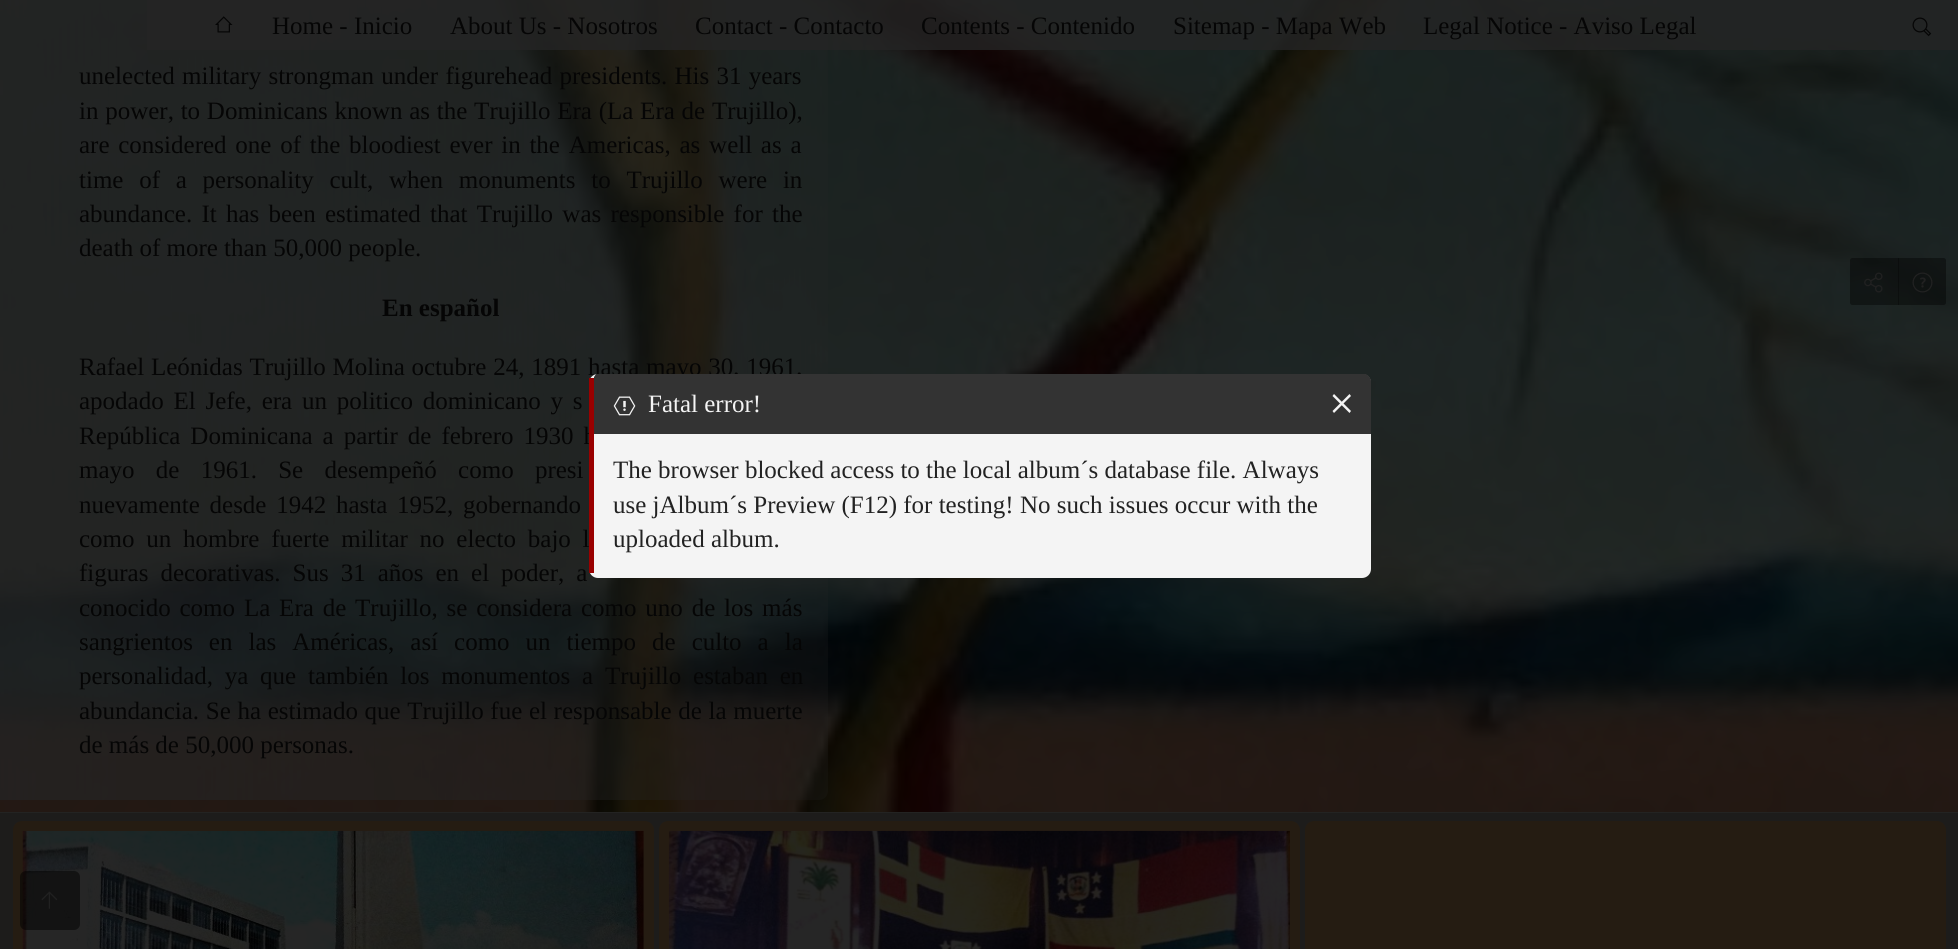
#include <cairo.h>
#include <math.h>
#include <stddef.h>

static cairo_t *ctx;

static void use_color(int r, int g, int b) {
    cairo_set_source_rgb(ctx, r / 255.0, g / 255.0, b / 255.0);
}

static void spaced_text(double x, double y, const char *s, double letter, double word) {
    cairo_move_to(ctx, x, y);
    while (*s) {
        char ch[5] = {0};
        int n = 0;
        do ch[n++] = *s++; while ((*s & 0xC0) == 0x80);
        cairo_show_text(ctx, ch);
        cairo_rel_move_to(ctx, letter + word * (*ch == ' '), 0);
    }
}

static void round_rect(double x, double y, double w, double h, double r) {
    cairo_new_sub_path(ctx);
    cairo_arc(ctx, x + w - r, y + h - r, r, 0, M_PI / 2);
    cairo_arc(ctx, x + r, y + h - r, r, M_PI / 2, M_PI);
    cairo_arc(ctx, x + r, y + r, r, M_PI, 1.5 * M_PI);
    cairo_arc(ctx, x + w - r, y + r, r, 1.5 * M_PI, 2 * M_PI);
    cairo_close_path(ctx);
}

static void picture(const char *path, double x, double y, double w, double h) {
    cairo_surface_t *image = cairo_image_surface_create_from_png(path);
    cairo_save(ctx);
    cairo_set_source_surface(ctx, image, x, y);
    cairo_rectangle(ctx, x, y, w, h);
    cairo_fill(ctx);
    cairo_restore(ctx);
    cairo_surface_destroy(image);
}

int main(void) {
    cairo_surface_t *surface = cairo_image_surface_create(CAIRO_FORMAT_RGB24, 1958, 949);
    ctx = cairo_create(surface);
    cairo_font_options_t *options = cairo_font_options_create();
    cairo_font_options_set_hint_metrics(options, CAIRO_HINT_METRICS_OFF);
    cairo_font_options_set_hint_style(options, CAIRO_HINT_STYLE_NONE);
    cairo_set_font_options(ctx, options);
    cairo_set_miter_limit(ctx, 4);
    use_color(29, 28, 27);
    cairo_paint(ctx);
    picture("img3.png", 0, 0, 1958, 812);
    cairo_set_source_rgba(ctx, 0.145, 0.145, 0.145, 0.8);
    cairo_rectangle(ctx, 147, 0, 1811, 50);
    cairo_fill(ctx);
    picture("img1.png", 215, 16, 18, 17);
    cairo_select_font_face(ctx, "Liberation Serif", CAIRO_FONT_SLANT_NORMAL, CAIRO_FONT_WEIGHT_NORMAL);
    cairo_set_font_size(ctx, 25);
    use_color(5, 5, 5);
    cairo_move_to(ctx, 272, 34);
    cairo_show_text(ctx, "Home - Inicio");
    cairo_move_to(ctx, 450, 34);
    cairo_show_text(ctx, "About Us - Nosotros");
    cairo_move_to(ctx, 695, 34);
    cairo_show_text(ctx, "Contact - Contacto");
    cairo_move_to(ctx, 921, 34);
    cairo_show_text(ctx, "Contents - Contenido");
    cairo_move_to(ctx, 1173, 34);
    cairo_show_text(ctx, "Sitemap - Mapa Web");
    cairo_move_to(ctx, 1423, 34);
    cairo_show_text(ctx, "Legal Notice - Aviso Legal");
    picture("img2.png", 1912, 17, 20, 20);
    cairo_set_source_rgba(ctx, 0.145, 0.145, 0.145, 0.8);
    cairo_rectangle(ctx, 0, 812, 1958, 1);
    cairo_fill(ctx);
    use_color(5, 5, 5);
    spaced_text(79, 84, "unelected military strongman under figurehead presidents. His 31 years", 0, 1);
    spaced_text(79, 119, "in power, to Dominicans known as the Trujillo Era (La Era de Trujillo),", 0, 0.5);
    spaced_text(79, 153, "are considered one of the bloodiest ever in the Americas, as well as a", 0, 2.5);
    spaced_text(79, 188, "time of a personality cult, when monuments to Trujillo were in", 0, 9.5);
    spaced_text(79, 222, "abundance. It has been estimated that Trujillo was responsible for the", 0, 3);
    cairo_move_to(ctx, 79, 256);
    cairo_show_text(ctx, "death of more than 50,000 people.");
    cairo_select_font_face(ctx, "Liberation Serif", CAIRO_FONT_SLANT_NORMAL, CAIRO_FONT_WEIGHT_BOLD);
    cairo_move_to(ctx, 382, 316);
    cairo_show_text(ctx, "En español");
    cairo_select_font_face(ctx, "Liberation Serif", CAIRO_FONT_SLANT_NORMAL, CAIRO_FONT_WEIGHT_NORMAL);
    spaced_text(79, 375, "Rafael Leónidas Trujillo Molina octubre 24, 1891 hasta mayo 30, 1961,", 0, 0.5);
    spaced_text(79, 409, "apodado El Jefe, era un politico dominicano y s", 0, 3.5);
    spaced_text(79, 444, "República Dominicana a partir de febrero 1930 h", 0, 3.75);
    spaced_text(79, 478, "mayo de 1961. Se desempeñó como presi", 0, 15);
    spaced_text(79, 513, "nuevamente desde 1942 hasta 1952, gobernando", 0, 3.5);
    spaced_text(79, 547, "como un hombre fuerte militar no electo bajo l", 0, 5.5);
    spaced_text(79, 581, "figuras decorativas. Sus 31 años en el poder, a", 0, 5.75);
    spaced_text(79, 616, "conocido como La Era de Trujillo, se considera como uno de los más", 0, 2.6);
    spaced_text(79, 650, "sangrientos en las Américas, así como un tiempo de culto a la", 0, 9.75);
    spaced_text(79, 684, "personalidad, ya que también los monumentos a Trujillo estaban en", 0, 5.5);
    spaced_text(79, 719, "abundancia. Se ha estimado que Trujillo fue el responsable de la muerte", 0, 0.4);
    cairo_move_to(ctx, 79, 753);
    cairo_show_text(ctx, "de más de 50,000 personas.");
    cairo_set_source_rgba(ctx, 0, 0, 0, 0.4);
    cairo_new_path(ctx);
    cairo_move_to(ctx, 1852.5, 258);
    cairo_line_to(ctx, 1898, 258);
    cairo_line_to(ctx, 1898, 305);
    cairo_line_to(ctx, 1852.5, 305);
    cairo_curve_to(ctx, 1851, 305, 1850, 304, 1850, 302.5);
    cairo_line_to(ctx, 1850, 260.5);
    cairo_curve_to(ctx, 1850, 259, 1851, 258, 1852.5, 258);
    cairo_close_path(ctx);
    cairo_fill(ctx);
    picture("img4.png", 1864, 272, 19, 21);
    cairo_new_path(ctx);
    cairo_move_to(ctx, 1898, 258);
    cairo_line_to(ctx, 1943.5, 258);
    cairo_curve_to(ctx, 1945, 258, 1946, 259, 1946, 260.5);
    cairo_line_to(ctx, 1946, 302.5);
    cairo_curve_to(ctx, 1946, 304, 1945, 305, 1943.5, 305);
    cairo_line_to(ctx, 1898, 305);
    cairo_close_path(ctx);
    cairo_fill(ctx);
    cairo_set_source_rgba(ctx, 0, 0, 0, 0.3);
    cairo_rectangle(ctx, 1898, 258, 1, 47);
    cairo_fill(ctx);
    picture("img5.png", 1912, 272, 21, 21);
    use_color(244, 244, 244);
    round_rect(589, 374, 782, 204, 9);
    cairo_fill(ctx);
    use_color(153, 0, 0);
    cairo_rectangle(ctx, 589, 378, 5, 195);
    cairo_fill(ctx);
    use_color(51, 51, 51);
    cairo_new_path(ctx);
    cairo_move_to(ctx, 594, 377);
    cairo_line_to(ctx, 596, 374);
    cairo_line_to(ctx, 1365, 374);
    cairo_curve_to(ctx, 1368, 375, 1371, 378, 1371, 382);
    cairo_line_to(ctx, 1371, 434);
    cairo_line_to(ctx, 594, 434);
    cairo_close_path(ctx);
    cairo_fill(ctx);
    picture("img6.png", 613, 396, 23, 20);
    use_color(244, 244, 244);
    cairo_move_to(ctx, 648, 412);
    cairo_show_text(ctx, "Fatal error!");
    use_color(51, 51, 51);
    cairo_new_path(ctx);
    cairo_move_to(ctx, 1311, 374);
    cairo_line_to(ctx, 1365, 374);
    cairo_curve_to(ctx, 1368, 375, 1371, 378, 1371, 382);
    cairo_line_to(ctx, 1371, 434);
    cairo_line_to(ctx, 1311, 434);
    cairo_close_path(ctx);
    cairo_fill(ctx);
    use_color(244, 244, 244);
    cairo_new_path(ctx);
    cairo_move_to(ctx, 1349.5, 394);
    cairo_line_to(ctx, 1351, 396);
    cairo_line_to(ctx, 1334, 413);
    cairo_line_to(ctx, 1332.5, 411);
    cairo_close_path(ctx);
    cairo_fill(ctx);
    cairo_new_path(ctx);
    cairo_move_to(ctx, 1332.5, 396);
    cairo_line_to(ctx, 1334, 394);
    cairo_line_to(ctx, 1351, 411);
    cairo_line_to(ctx, 1349.5, 413);
    cairo_close_path(ctx);
    cairo_fill(ctx);
    use_color(34, 34, 34);
    cairo_move_to(ctx, 613, 478);
    cairo_show_text(ctx, "The browser blocked access to the local album´s database file. Always");
    cairo_move_to(ctx, 613, 513);
    cairo_show_text(ctx, "use jAlbum´s Preview (F12) for testing! No such issues occur with the");
    cairo_move_to(ctx, 613, 547);
    cairo_show_text(ctx, "uploaded album.");
    use_color(37, 28, 18);
    round_rect(13, 821, 641, 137, 9);
    cairo_fill(ctx);
    picture("img7.png", 22, 830, 622, 119);
    round_rect(659, 821, 641, 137, 9);
    cairo_fill(ctx);
    picture("img8.png", 668, 830, 622, 119);
    round_rect(1305, 821, 641, 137, 9);
    cairo_fill(ctx);
    cairo_set_source_rgba(ctx, 0, 0, 0, 0.5);
    round_rect(20, 871, 60, 59, 6);
    cairo_fill(ctx);
    picture("img9.png", 41, 891, 17, 18);
    cairo_surface_write_to_png(surface, "result.png");
    cairo_font_options_destroy(options);
    cairo_destroy(ctx);
    cairo_surface_destroy(surface);
    return 0;
}
